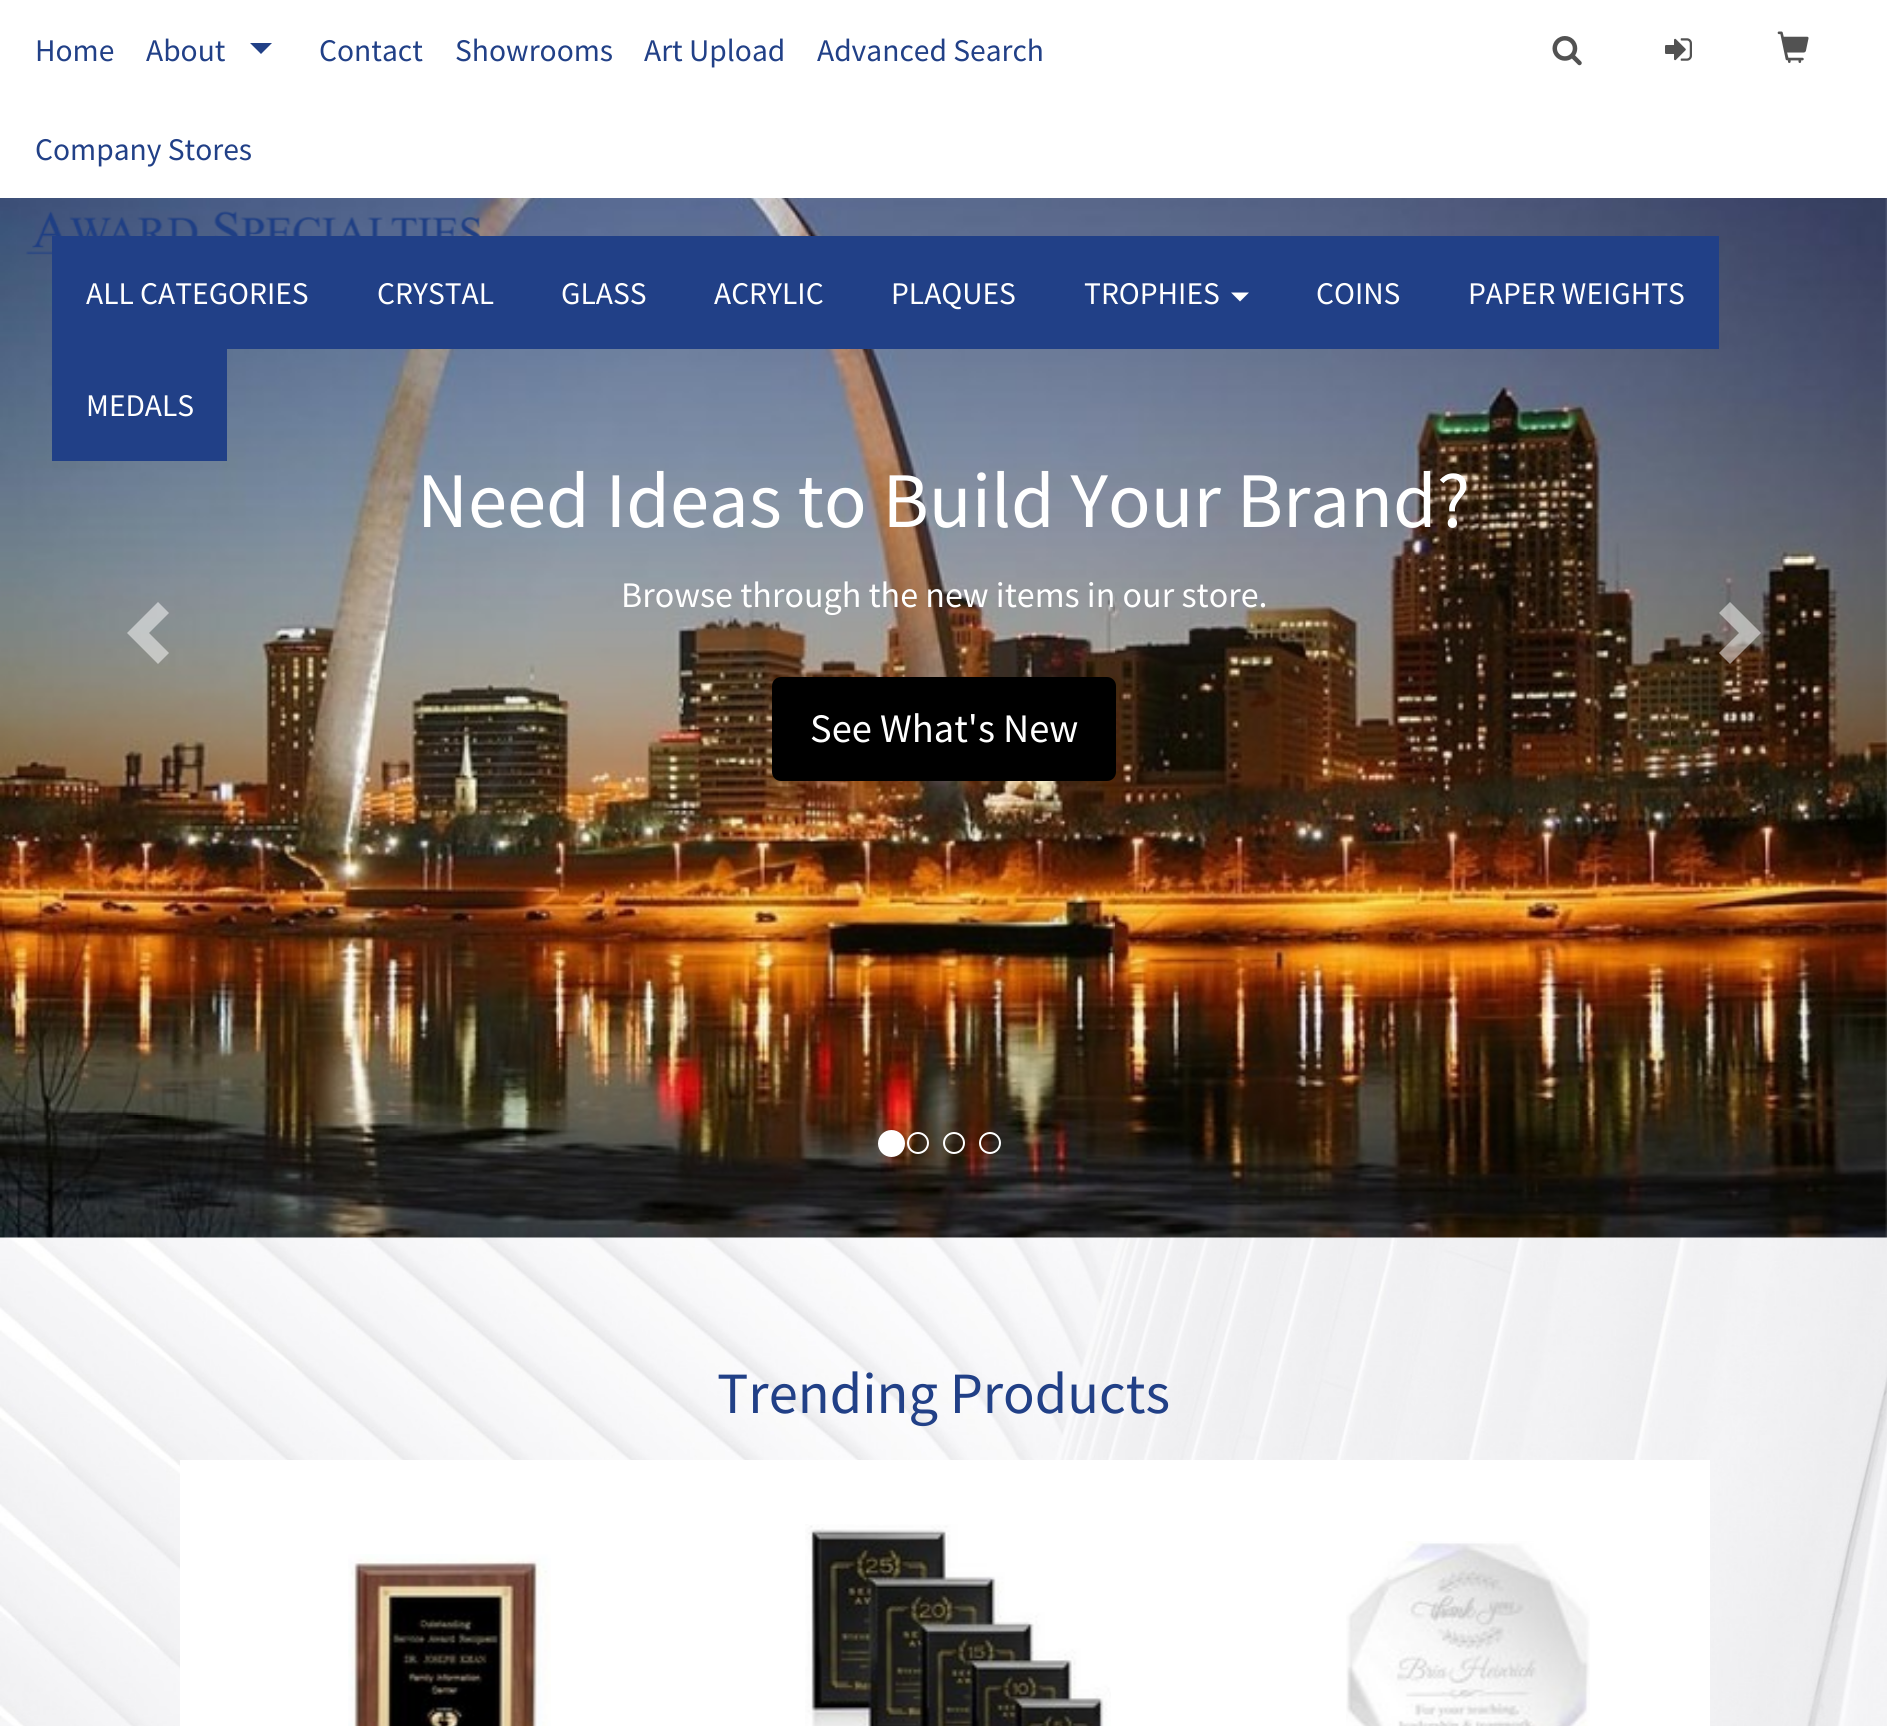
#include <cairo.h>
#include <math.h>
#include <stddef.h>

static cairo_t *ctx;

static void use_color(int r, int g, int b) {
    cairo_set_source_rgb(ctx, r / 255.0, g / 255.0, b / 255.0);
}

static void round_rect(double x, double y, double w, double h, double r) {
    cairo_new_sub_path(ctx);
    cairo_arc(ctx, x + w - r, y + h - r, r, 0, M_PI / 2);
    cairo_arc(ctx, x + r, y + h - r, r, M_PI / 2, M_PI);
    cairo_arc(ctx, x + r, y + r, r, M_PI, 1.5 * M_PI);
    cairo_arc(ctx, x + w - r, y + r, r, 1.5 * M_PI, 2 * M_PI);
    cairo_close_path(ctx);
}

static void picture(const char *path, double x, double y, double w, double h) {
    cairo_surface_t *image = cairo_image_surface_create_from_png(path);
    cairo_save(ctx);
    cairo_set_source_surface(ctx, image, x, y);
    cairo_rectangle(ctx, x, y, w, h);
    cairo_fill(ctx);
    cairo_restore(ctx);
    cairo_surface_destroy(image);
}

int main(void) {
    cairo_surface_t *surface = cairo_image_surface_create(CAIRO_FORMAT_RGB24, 1887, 1726);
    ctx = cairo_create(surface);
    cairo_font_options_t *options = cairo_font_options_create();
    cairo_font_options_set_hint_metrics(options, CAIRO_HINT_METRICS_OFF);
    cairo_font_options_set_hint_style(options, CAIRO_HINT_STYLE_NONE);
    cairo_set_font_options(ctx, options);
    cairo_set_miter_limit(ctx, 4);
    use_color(255, 255, 255);
    cairo_paint(ctx);
    cairo_select_font_face(ctx, "Source Sans Pro", CAIRO_FONT_SLANT_NORMAL, CAIRO_FONT_WEIGHT_NORMAL);
    cairo_set_font_size(ctx, 31.5);
    use_color(33, 64, 135);
    cairo_move_to(ctx, 35, 61);
    cairo_show_text(ctx, "Home");
    cairo_move_to(ctx, 146, 61);
    cairo_show_text(ctx, "About");
    cairo_new_path(ctx);
    cairo_move_to(ctx, 250, 43);
    cairo_line_to(ctx, 272, 43);
    cairo_line_to(ctx, 261, 54);
    cairo_close_path(ctx);
    cairo_fill(ctx);
    cairo_move_to(ctx, 319, 61);
    cairo_show_text(ctx, "Contact");
    cairo_move_to(ctx, 455, 61);
    cairo_show_text(ctx, "Showrooms");
    cairo_move_to(ctx, 644, 61);
    cairo_show_text(ctx, "Art Upload");
    cairo_move_to(ctx, 817, 61);
    cairo_show_text(ctx, "Advanced Search");
    cairo_move_to(ctx, 35, 160);
    cairo_show_text(ctx, "Company Stores");
    picture("img1.png", 1552, 36, 30, 30);
    picture("img2.png", 1665, 38, 27, 23);
    picture("img3.png", 1777, 31, 32, 32);
    picture("img6.png", 0, 1237, 1887, 489);
    picture("img5.png", 0, 198, 1887, 1040);
    picture("img4.png", 26, 211, 455, 44);
    cairo_rectangle(ctx, 52, 236, 1667, 113);
    cairo_fill(ctx);
    use_color(255, 255, 255);
    cairo_move_to(ctx, 86, 304);
    cairo_show_text(ctx, "ALL CATEGORIES");
    cairo_move_to(ctx, 377, 304);
    cairo_show_text(ctx, "CRYSTAL");
    cairo_move_to(ctx, 561, 304);
    cairo_show_text(ctx, "GLASS");
    cairo_move_to(ctx, 714, 304);
    cairo_show_text(ctx, "ACRYLIC");
    cairo_move_to(ctx, 891, 304);
    cairo_show_text(ctx, "PLAQUES");
    cairo_move_to(ctx, 1084, 304);
    cairo_show_text(ctx, "TROPHIES");
    cairo_new_path(ctx);
    cairo_move_to(ctx, 1231, 292.5);
    cairo_line_to(ctx, 1249, 292.5);
    cairo_line_to(ctx, 1240, 301.5);
    cairo_close_path(ctx);
    cairo_fill(ctx);
    cairo_move_to(ctx, 1316, 304);
    cairo_show_text(ctx, "COINS");
    cairo_move_to(ctx, 1468, 304);
    cairo_show_text(ctx, "PAPER WEIGHTS");
    use_color(33, 64, 135);
    cairo_rectangle(ctx, 52, 349, 175, 112);
    cairo_fill(ctx);
    use_color(255, 255, 255);
    cairo_move_to(ctx, 86, 416);
    cairo_show_text(ctx, "MEDALS");
    cairo_set_source_rgba(ctx, 1, 1, 1, 0.5);
    cairo_new_path(ctx);
    cairo_move_to(ctx, 169, 613);
    cairo_line_to(ctx, 149, 633);
    cairo_line_to(ctx, 169, 653);
    cairo_line_to(ctx, 158, 664);
    cairo_line_to(ctx, 127, 633);
    cairo_line_to(ctx, 158, 602);
    cairo_close_path(ctx);
    cairo_fill(ctx);
    cairo_set_font_size(ctx, 78.75);
    use_color(255, 255, 255);
    cairo_move_to(ctx, 417, 527);
    cairo_show_text(ctx, "Need Ideas to Build Your Brand?");
    cairo_set_font_size(ctx, 36);
    cairo_move_to(ctx, 621, 607);
    cairo_show_text(ctx, "Browse through the new items in our store.");
    use_color(0, 0, 0);
    round_rect(773, 678, 342, 102, 8);
    cairo_fill_preserve(ctx);
    cairo_stroke(ctx);
    cairo_set_font_size(ctx, 40.5);
    use_color(255, 255, 255);
    cairo_move_to(ctx, 810, 742);
    cairo_show_text(ctx, "See What's New");
    cairo_set_source_rgba(ctx, 1, 1, 1, 0.5);
    cairo_new_path(ctx);
    cairo_move_to(ctx, 1761, 633);
    cairo_line_to(ctx, 1730, 664);
    cairo_line_to(ctx, 1719, 653);
    cairo_line_to(ctx, 1739, 633);
    cairo_line_to(ctx, 1719, 613);
    cairo_line_to(ctx, 1730, 602);
    cairo_close_path(ctx);
    cairo_fill(ctx);
    use_color(255, 255, 255);
    cairo_arc(ctx, 891.5, 1143.5, 12.5, 0, 2 * M_PI);
    cairo_fill_preserve(ctx);
    cairo_stroke(ctx);
    cairo_arc(ctx, 918, 1143, 10, 0, 2 * M_PI);
    cairo_stroke(ctx);
    cairo_arc(ctx, 954, 1143, 10, 0, 2 * M_PI);
    cairo_stroke(ctx);
    cairo_arc(ctx, 990, 1143, 10, 0, 2 * M_PI);
    cairo_stroke(ctx);
    cairo_set_font_size(ctx, 58.5);
    use_color(33, 64, 135);
    cairo_move_to(ctx, 717, 1413);
    cairo_show_text(ctx, "Trending Products");
    use_color(255, 255, 255);
    cairo_rectangle(ctx, 180, 1460, 1530, 266);
    cairo_fill(ctx);
    picture("img7.png", 348, 1554, 203, 172);
    picture("img8.png", 805, 1524, 306, 202);
    picture("img9.png", 1346, 1541, 244, 185);
    cairo_surface_write_to_png(surface, "result.png");
    cairo_font_options_destroy(options);
    cairo_destroy(ctx);
    cairo_surface_destroy(surface);
    return 0;
}
